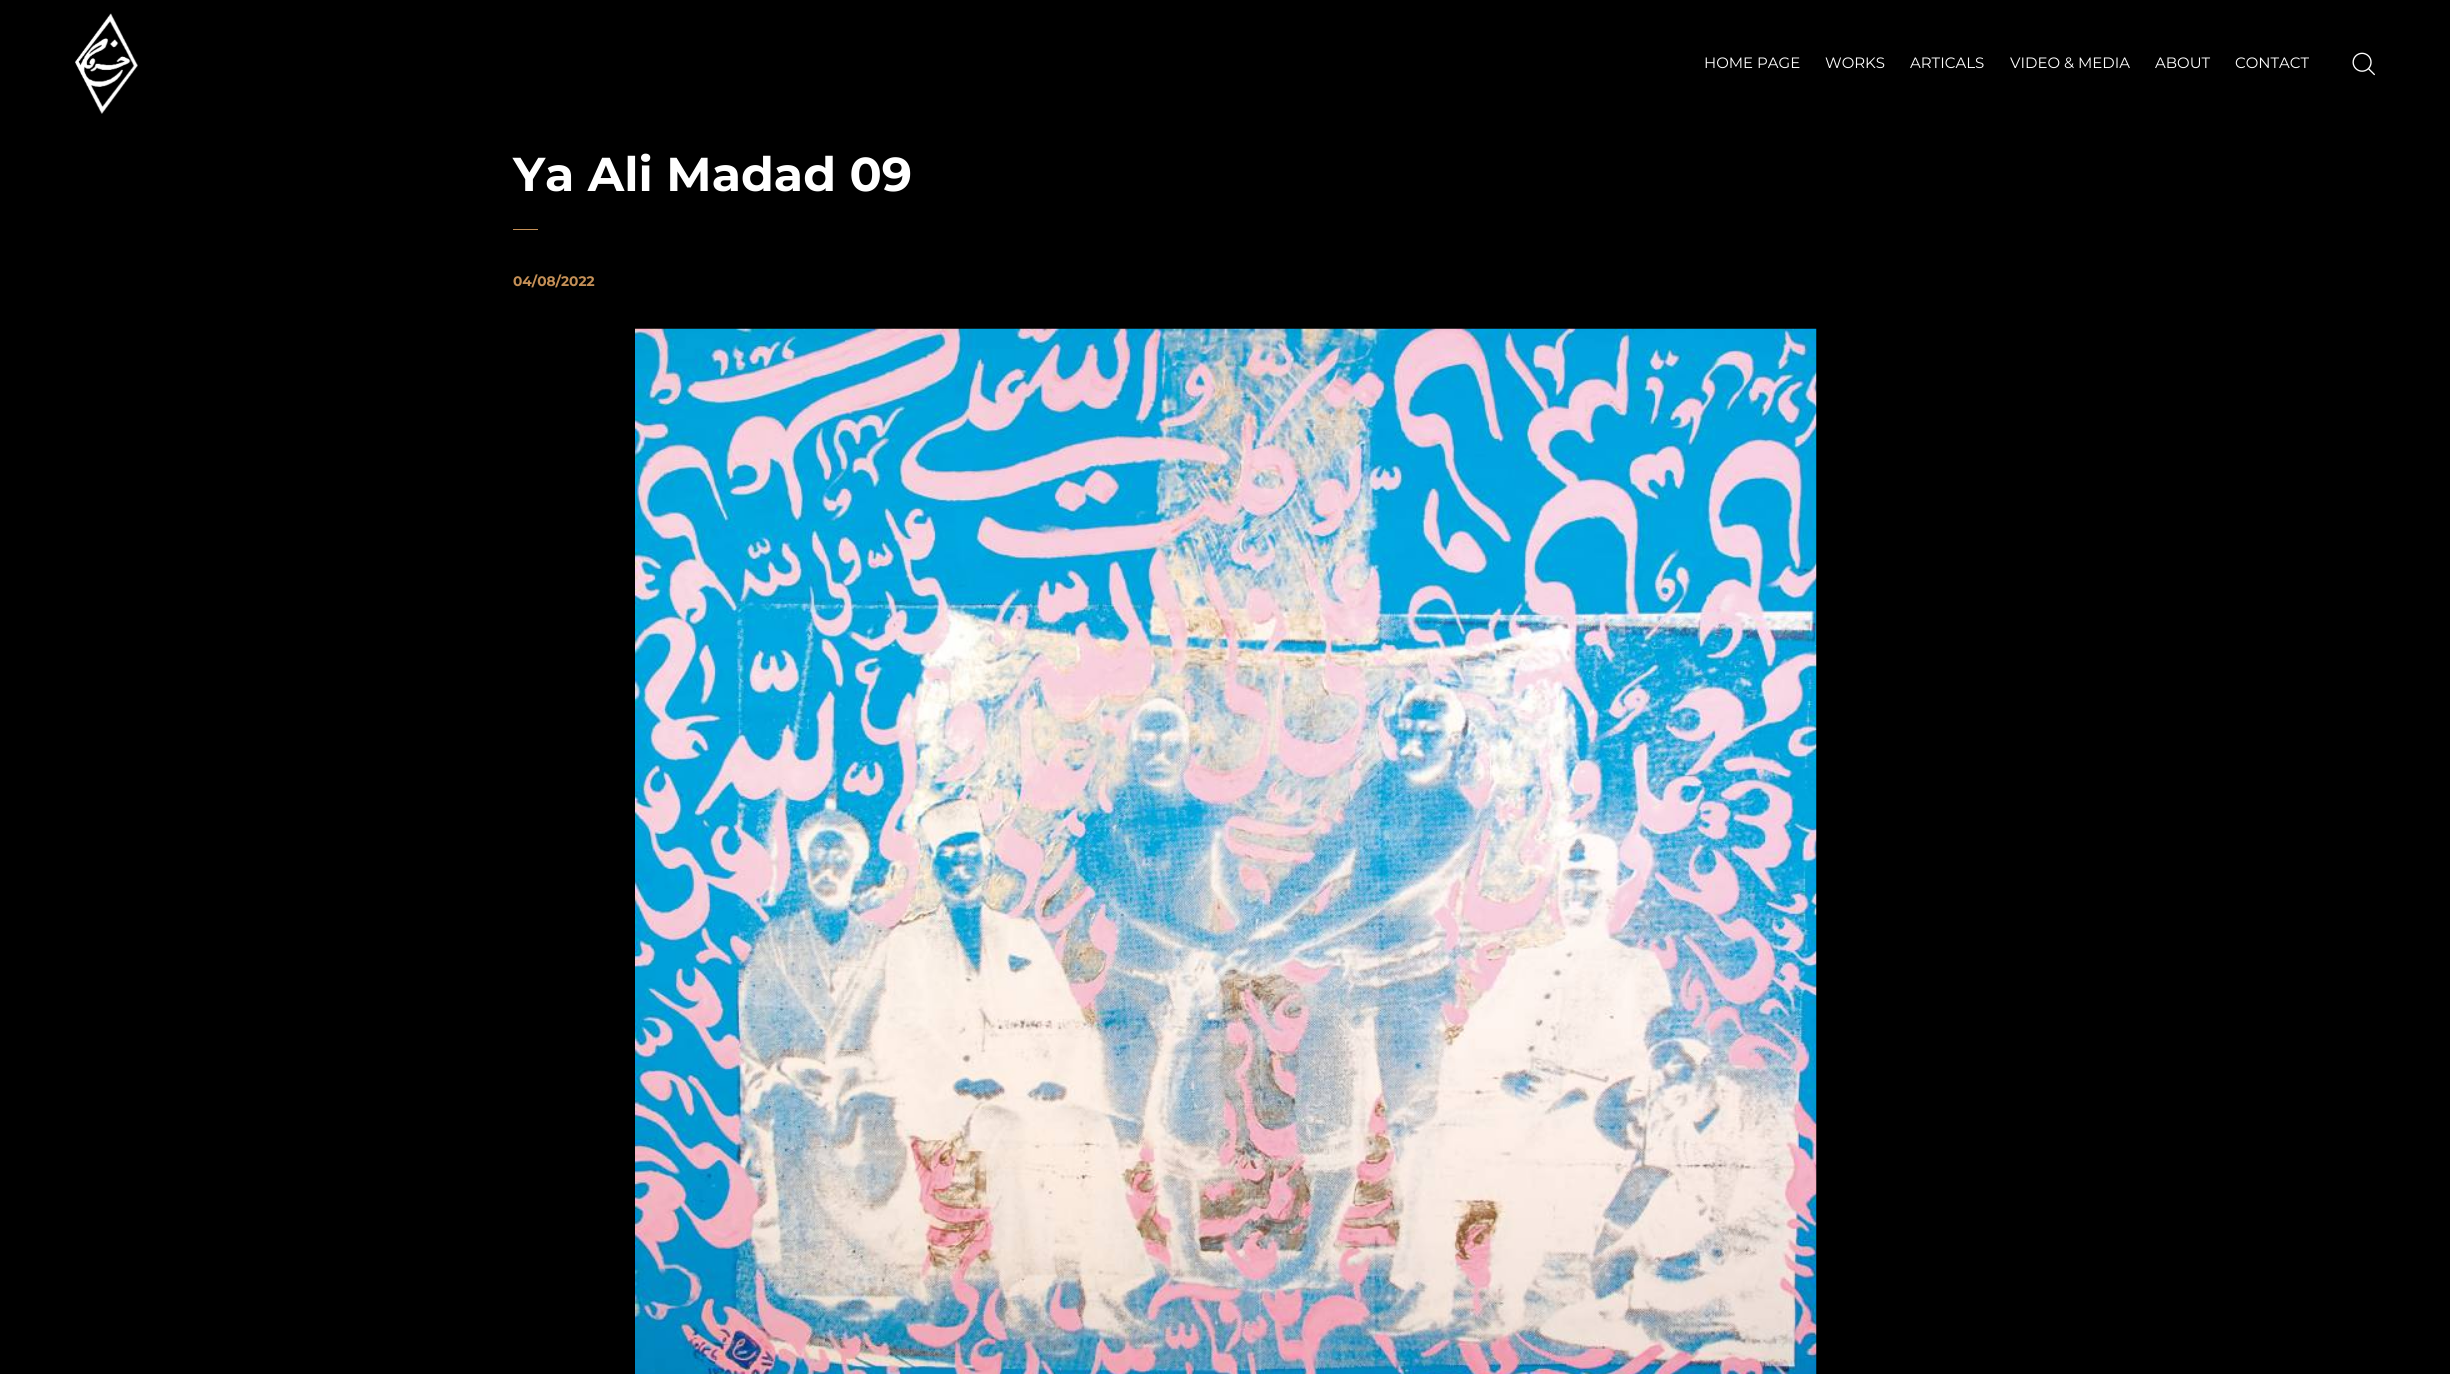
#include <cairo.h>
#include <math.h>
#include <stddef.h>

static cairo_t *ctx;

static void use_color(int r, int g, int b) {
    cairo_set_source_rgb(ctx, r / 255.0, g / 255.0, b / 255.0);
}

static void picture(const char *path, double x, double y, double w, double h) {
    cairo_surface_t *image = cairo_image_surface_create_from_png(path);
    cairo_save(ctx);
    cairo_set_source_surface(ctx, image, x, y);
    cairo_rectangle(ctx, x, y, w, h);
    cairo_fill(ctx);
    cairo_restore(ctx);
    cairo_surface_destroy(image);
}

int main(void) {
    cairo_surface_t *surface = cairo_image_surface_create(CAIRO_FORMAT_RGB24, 2450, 1374);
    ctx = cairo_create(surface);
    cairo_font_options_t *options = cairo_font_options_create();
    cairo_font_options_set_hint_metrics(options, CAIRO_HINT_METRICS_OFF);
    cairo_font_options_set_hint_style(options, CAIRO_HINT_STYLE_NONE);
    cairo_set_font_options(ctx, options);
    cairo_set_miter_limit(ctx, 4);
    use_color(0, 0, 0);
    cairo_paint(ctx);
    picture("img1.png", 75, 13, 63, 101);
    cairo_select_font_face(ctx, "Montserrat", CAIRO_FONT_SLANT_NORMAL, CAIRO_FONT_WEIGHT_NORMAL);
    cairo_set_font_size(ctx, 15);
    use_color(255, 255, 255);
    cairo_move_to(ctx, 1704, 68);
    cairo_show_text(ctx, "HOME PAGE");
    cairo_move_to(ctx, 1825, 68);
    cairo_show_text(ctx, "WORKS");
    cairo_move_to(ctx, 1910, 68);
    cairo_show_text(ctx, "ARTICALS");
    cairo_move_to(ctx, 2010, 68);
    cairo_show_text(ctx, "VIDEO & MEDIA");
    cairo_move_to(ctx, 2155, 68);
    cairo_show_text(ctx, "ABOUT");
    cairo_move_to(ctx, 2235, 68);
    cairo_show_text(ctx, "CONTACT");
    picture("img2.png", 2352, 52, 23, 24);
    cairo_select_font_face(ctx, "Montserrat", CAIRO_FONT_SLANT_NORMAL, CAIRO_FONT_WEIGHT_BOLD);
    cairo_set_font_size(ctx, 47.5);
    cairo_move_to(ctx, 513, 191);
    cairo_show_text(ctx, "Ya Ali Madad 09");
    use_color(196, 143, 86);
    cairo_rectangle(ctx, 513, 229, 25, 1);
    cairo_fill(ctx);
    cairo_set_font_size(ctx, 13.75);
    cairo_move_to(ctx, 513, 286);
    cairo_show_text(ctx, "04/08/2022");
    picture("img3.png", 635, 328, 1182, 1046);
    cairo_surface_write_to_png(surface, "result.png");
    cairo_font_options_destroy(options);
    cairo_destroy(ctx);
    cairo_surface_destroy(surface);
    return 0;
}
